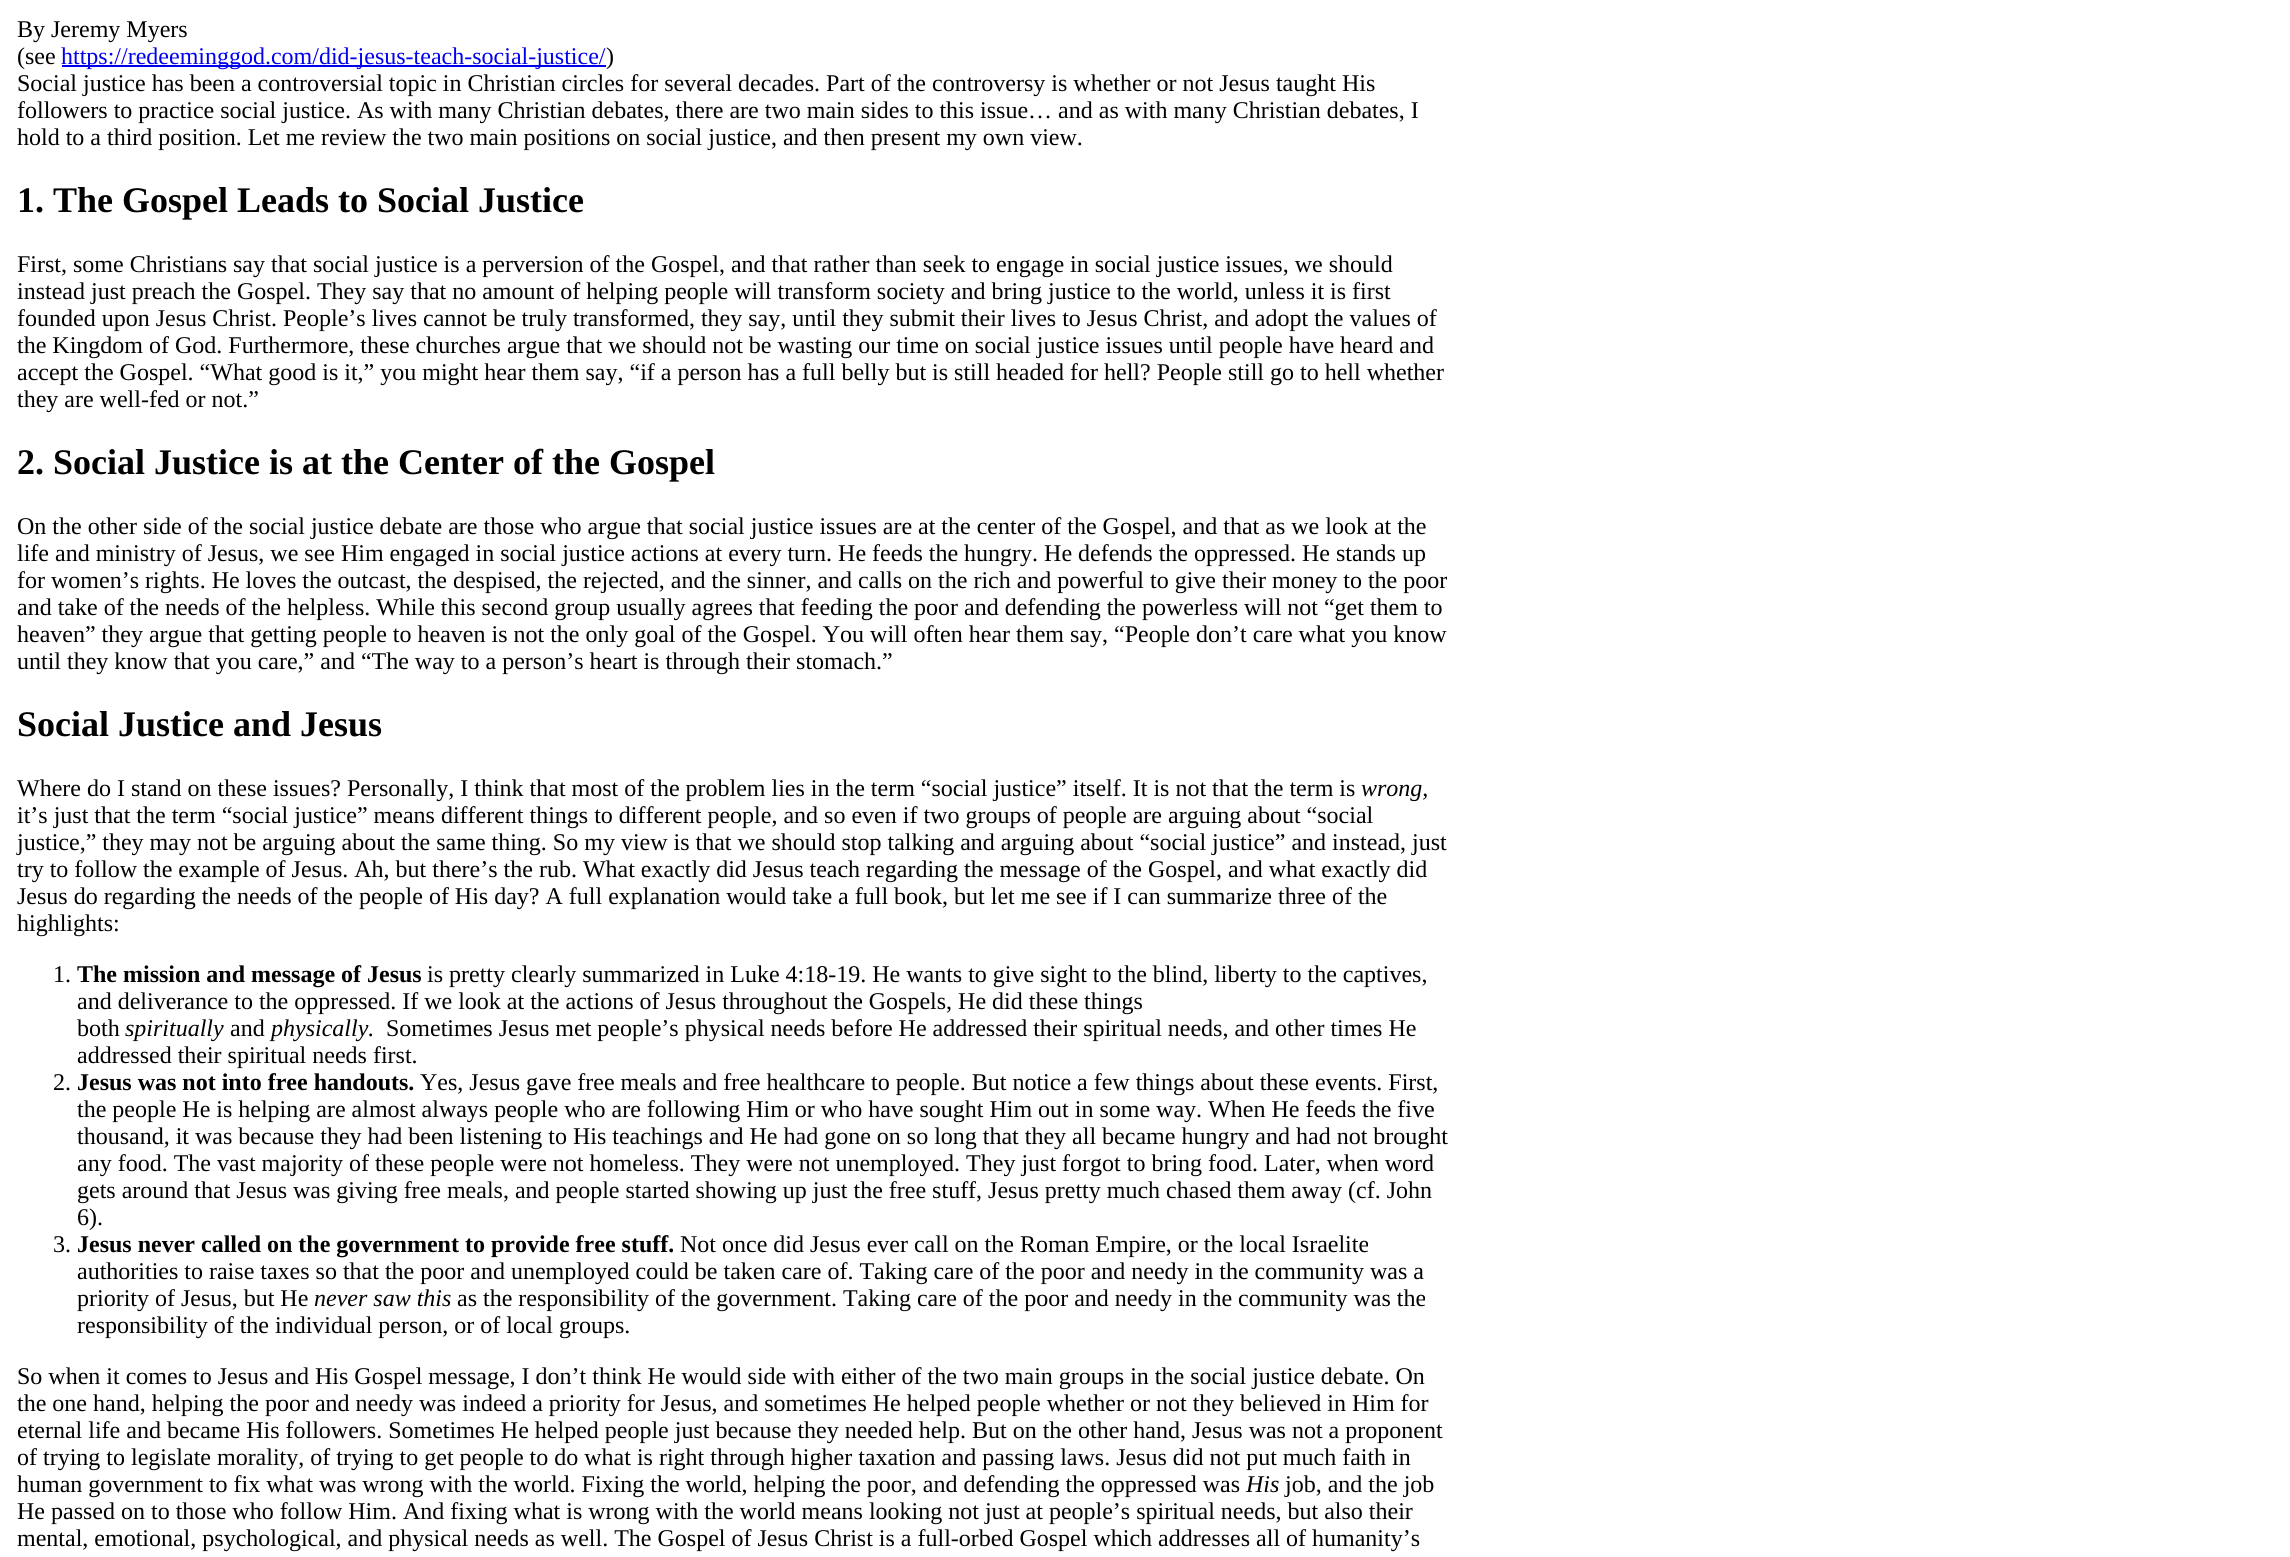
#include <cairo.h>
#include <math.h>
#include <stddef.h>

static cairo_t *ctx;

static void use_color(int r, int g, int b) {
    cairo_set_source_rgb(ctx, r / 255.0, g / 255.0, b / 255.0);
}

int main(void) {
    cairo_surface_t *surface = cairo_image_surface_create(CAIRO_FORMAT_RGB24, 2290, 1557);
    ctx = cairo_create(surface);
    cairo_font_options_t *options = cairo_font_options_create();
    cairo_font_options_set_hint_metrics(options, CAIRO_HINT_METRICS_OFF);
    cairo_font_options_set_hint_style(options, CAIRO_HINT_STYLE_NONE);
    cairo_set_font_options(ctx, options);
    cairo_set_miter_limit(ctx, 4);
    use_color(255, 255, 255);
    cairo_paint(ctx);
    cairo_select_font_face(ctx, "Liberation Serif", CAIRO_FONT_SLANT_NORMAL, CAIRO_FONT_WEIGHT_NORMAL);
    cairo_set_font_size(ctx, 24);
    use_color(0, 0, 0);
    cairo_move_to(ctx, 17, 37);
    cairo_show_text(ctx, "By Jeremy Myers");
    cairo_move_to(ctx, 17, 64);
    cairo_show_text(ctx, "(see");
    use_color(0, 0, 238);
    cairo_rectangle(ctx, 62, 65, 544, 2);
    cairo_fill(ctx);
    cairo_move_to(ctx, 61, 64);
    cairo_show_text(ctx, "https://redeeminggod.com/did-jesus-teach-social-justice/");
    use_color(0, 0, 0);
    cairo_move_to(ctx, 606, 64);
    cairo_show_text(ctx, ")");
    cairo_move_to(ctx, 17, 91);
    cairo_show_text(ctx, "Social justice has been a controversial topic in Christian circles for several decades. Part of the controversy is whether or not Jesus taught His");
    cairo_move_to(ctx, 17, 118);
    cairo_show_text(ctx, "followers to practice social justice. As with many Christian debates, there are two main sides to this issue… and as with many Christian debates, I");
    cairo_move_to(ctx, 17, 145);
    cairo_show_text(ctx, "hold to a third position. Let me review the two main positions on social justice, and then present my own view.");
    cairo_select_font_face(ctx, "Liberation Serif", CAIRO_FONT_SLANT_NORMAL, CAIRO_FONT_WEIGHT_BOLD);
    cairo_set_font_size(ctx, 36);
    cairo_move_to(ctx, 17, 212);
    cairo_show_text(ctx, "1. The Gospel Leads to Social Justice");
    cairo_select_font_face(ctx, "Liberation Serif", CAIRO_FONT_SLANT_NORMAL, CAIRO_FONT_WEIGHT_NORMAL);
    cairo_set_font_size(ctx, 24);
    cairo_move_to(ctx, 17, 272);
    cairo_show_text(ctx, "First, some Christians say that social justice is a perversion of the Gospel, and that rather than seek to engage in social justice issues, we should");
    cairo_move_to(ctx, 17, 299);
    cairo_show_text(ctx, "instead just preach the Gospel. They say that no amount of helping people will transform society and bring justice to the world, unless it is first");
    cairo_move_to(ctx, 17, 326);
    cairo_show_text(ctx, "founded upon Jesus Christ. People’s lives cannot be truly transformed, they say, until they submit their lives to Jesus Christ, and adopt the values of");
    cairo_move_to(ctx, 17, 353);
    cairo_show_text(ctx, "the Kingdom of God. Furthermore, these churches argue that we should not be wasting our time on social justice issues until people have heard and");
    cairo_move_to(ctx, 17, 380);
    cairo_show_text(ctx, "accept the Gospel. “What good is it,” you might hear them say, “if a person has a full belly but is still headed for hell? People still go to hell whether");
    cairo_move_to(ctx, 17, 407);
    cairo_show_text(ctx, "they are well-fed or not.”");
    cairo_select_font_face(ctx, "Liberation Serif", CAIRO_FONT_SLANT_NORMAL, CAIRO_FONT_WEIGHT_BOLD);
    cairo_set_font_size(ctx, 36);
    cairo_move_to(ctx, 17, 474);
    cairo_show_text(ctx, "2. Social Justice is at the Center of the Gospel");
    cairo_select_font_face(ctx, "Liberation Serif", CAIRO_FONT_SLANT_NORMAL, CAIRO_FONT_WEIGHT_NORMAL);
    cairo_set_font_size(ctx, 24);
    cairo_move_to(ctx, 17, 534);
    cairo_show_text(ctx, "On the other side of the social justice debate are those who argue that social justice issues are at the center of the Gospel, and that as we look at the");
    cairo_move_to(ctx, 17, 561);
    cairo_show_text(ctx, "life and ministry of Jesus, we see Him engaged in social justice actions at every turn. He feeds the hungry. He defends the oppressed. He stands up");
    cairo_move_to(ctx, 17, 588);
    cairo_show_text(ctx, "for women’s rights. He loves the outcast, the despised, the rejected, and the sinner, and calls on the rich and powerful to give their money to the poor");
    cairo_move_to(ctx, 17, 615);
    cairo_show_text(ctx, "and take of the needs of the helpless. While this second group usually agrees that feeding the poor and defending the powerless will not “get them to");
    cairo_move_to(ctx, 17, 642);
    cairo_show_text(ctx, "heaven” they argue that getting people to heaven is not the only goal of the Gospel. You will often hear them say, “People don’t care what you know");
    cairo_move_to(ctx, 17, 669);
    cairo_show_text(ctx, "until they know that you care,” and “The way to a person’s heart is through their stomach.”");
    cairo_select_font_face(ctx, "Liberation Serif", CAIRO_FONT_SLANT_NORMAL, CAIRO_FONT_WEIGHT_BOLD);
    cairo_set_font_size(ctx, 36);
    cairo_move_to(ctx, 17, 736);
    cairo_show_text(ctx, "Social Justice and Jesus");
    cairo_select_font_face(ctx, "Liberation Serif", CAIRO_FONT_SLANT_NORMAL, CAIRO_FONT_WEIGHT_NORMAL);
    cairo_set_font_size(ctx, 24);
    cairo_move_to(ctx, 17, 796);
    cairo_show_text(ctx, "Where do I stand on these issues? Personally, I think that most of the problem lies in the term “social justice” itself. It is not that the term is");
    cairo_select_font_face(ctx, "Liberation Serif", CAIRO_FONT_SLANT_ITALIC, CAIRO_FONT_WEIGHT_NORMAL);
    cairo_move_to(ctx, 1361, 796);
    cairo_show_text(ctx, "wrong,");
    cairo_select_font_face(ctx, "Liberation Serif", CAIRO_FONT_SLANT_NORMAL, CAIRO_FONT_WEIGHT_NORMAL);
    cairo_move_to(ctx, 17, 823);
    cairo_show_text(ctx, "it’s just that the term “social justice” means different things to different people, and so even if two groups of people are arguing about “social");
    cairo_move_to(ctx, 17, 850);
    cairo_show_text(ctx, "justice,” they may not be arguing about the same thing. So my view is that we should stop talking and arguing about “social justice” and instead, just");
    cairo_move_to(ctx, 17, 877);
    cairo_show_text(ctx, "try to follow the example of Jesus. Ah, but there’s the rub. What exactly did Jesus teach regarding the message of the Gospel, and what exactly did");
    cairo_move_to(ctx, 17, 904);
    cairo_show_text(ctx, "Jesus do regarding the needs of the people of His day? A full explanation would take a full book, but let me see if I can summarize three of the");
    cairo_move_to(ctx, 17, 931);
    cairo_show_text(ctx, "highlights:");
    cairo_move_to(ctx, 53, 982);
    cairo_show_text(ctx, "1.");
    cairo_select_font_face(ctx, "Liberation Serif", CAIRO_FONT_SLANT_NORMAL, CAIRO_FONT_WEIGHT_BOLD);
    cairo_move_to(ctx, 77, 982);
    cairo_show_text(ctx, "The mission and message of Jesus");
    cairo_select_font_face(ctx, "Liberation Serif", CAIRO_FONT_SLANT_NORMAL, CAIRO_FONT_WEIGHT_NORMAL);
    cairo_move_to(ctx, 427, 982);
    cairo_show_text(ctx, "is pretty clearly summarized in Luke 4:18-19. He wants to give sight to the blind, liberty to the captives,");
    cairo_move_to(ctx, 77, 1009);
    cairo_show_text(ctx, "and deliverance to the oppressed. If we look at the actions of Jesus throughout the Gospels, He did these things");
    cairo_move_to(ctx, 77, 1036);
    cairo_show_text(ctx, "both");
    cairo_select_font_face(ctx, "Liberation Serif", CAIRO_FONT_SLANT_ITALIC, CAIRO_FONT_WEIGHT_NORMAL);
    cairo_move_to(ctx, 125, 1036);
    cairo_show_text(ctx, "spiritually");
    cairo_select_font_face(ctx, "Liberation Serif", CAIRO_FONT_SLANT_NORMAL, CAIRO_FONT_WEIGHT_NORMAL);
    cairo_move_to(ctx, 230, 1036);
    cairo_show_text(ctx, "and");
    cairo_select_font_face(ctx, "Liberation Serif", CAIRO_FONT_SLANT_ITALIC, CAIRO_FONT_WEIGHT_NORMAL);
    cairo_move_to(ctx, 271, 1036);
    cairo_show_text(ctx, "physically.");
    cairo_select_font_face(ctx, "Liberation Serif", CAIRO_FONT_SLANT_NORMAL, CAIRO_FONT_WEIGHT_NORMAL);
    cairo_move_to(ctx, 386, 1036);
    cairo_show_text(ctx, "Sometimes Jesus met people’s physical needs before He addressed their spiritual needs, and other times He");
    cairo_move_to(ctx, 77, 1063);
    cairo_show_text(ctx, "addressed their spiritual needs first.");
    cairo_move_to(ctx, 53, 1090);
    cairo_show_text(ctx, "2.");
    cairo_select_font_face(ctx, "Liberation Serif", CAIRO_FONT_SLANT_NORMAL, CAIRO_FONT_WEIGHT_BOLD);
    cairo_move_to(ctx, 77, 1090);
    cairo_show_text(ctx, "Jesus was not into free handouts.");
    cairo_select_font_face(ctx, "Liberation Serif", CAIRO_FONT_SLANT_NORMAL, CAIRO_FONT_WEIGHT_NORMAL);
    cairo_move_to(ctx, 420, 1090);
    cairo_show_text(ctx, "Yes, Jesus gave free meals and free healthcare to people. But notice a few things about these events. First,");
    cairo_move_to(ctx, 77, 1117);
    cairo_show_text(ctx, "the people He is helping are almost always people who are following Him or who have sought Him out in some way. When He feeds the five");
    cairo_move_to(ctx, 77, 1144);
    cairo_show_text(ctx, "thousand, it was because they had been listening to His teachings and He had gone on so long that they all became hungry and had not brought");
    cairo_move_to(ctx, 77, 1171);
    cairo_show_text(ctx, "any food. The vast majority of these people were not homeless. They were not unemployed. They just forgot to bring food. Later, when word");
    cairo_move_to(ctx, 77, 1198);
    cairo_show_text(ctx, "gets around that Jesus was giving free meals, and people started showing up just the free stuff, Jesus pretty much chased them away (cf. John");
    cairo_move_to(ctx, 77, 1225);
    cairo_show_text(ctx, "6).");
    cairo_move_to(ctx, 53, 1252);
    cairo_show_text(ctx, "3.");
    cairo_select_font_face(ctx, "Liberation Serif", CAIRO_FONT_SLANT_NORMAL, CAIRO_FONT_WEIGHT_BOLD);
    cairo_move_to(ctx, 77, 1252);
    cairo_show_text(ctx, "Jesus never called on the government to provide free stuff.");
    cairo_select_font_face(ctx, "Liberation Serif", CAIRO_FONT_SLANT_NORMAL, CAIRO_FONT_WEIGHT_NORMAL);
    cairo_move_to(ctx, 680, 1252);
    cairo_show_text(ctx, "Not once did Jesus ever call on the Roman Empire, or the local Israelite");
    cairo_move_to(ctx, 77, 1279);
    cairo_show_text(ctx, "authorities to raise taxes so that the poor and unemployed could be taken care of. Taking care of the poor and needy in the community was a");
    cairo_move_to(ctx, 77, 1306);
    cairo_show_text(ctx, "priority of Jesus, but He");
    cairo_select_font_face(ctx, "Liberation Serif", CAIRO_FONT_SLANT_ITALIC, CAIRO_FONT_WEIGHT_NORMAL);
    cairo_move_to(ctx, 314, 1306);
    cairo_show_text(ctx, "never saw this");
    cairo_select_font_face(ctx, "Liberation Serif", CAIRO_FONT_SLANT_NORMAL, CAIRO_FONT_WEIGHT_NORMAL);
    cairo_move_to(ctx, 457, 1306);
    cairo_show_text(ctx, "as the responsibility of the government. Taking care of the poor and needy in the community was the");
    cairo_move_to(ctx, 77, 1333);
    cairo_show_text(ctx, "responsibility of the individual person, or of local groups.");
    cairo_move_to(ctx, 17, 1384);
    cairo_show_text(ctx, "So when it comes to Jesus and His Gospel message, I don’t think He would side with either of the two main groups in the social justice debate. On");
    cairo_move_to(ctx, 17, 1411);
    cairo_show_text(ctx, "the one hand, helping the poor and needy was indeed a priority for Jesus, and sometimes He helped people whether or not they believed in Him for");
    cairo_move_to(ctx, 17, 1438);
    cairo_show_text(ctx, "eternal life and became His followers. Sometimes He helped people just because they needed help. But on the other hand, Jesus was not a proponent");
    cairo_move_to(ctx, 17, 1465);
    cairo_show_text(ctx, "of trying to legislate morality, of trying to get people to do what is right through higher taxation and passing laws. Jesus did not put much faith in");
    cairo_move_to(ctx, 17, 1492);
    cairo_show_text(ctx, "human government to fix what was wrong with the world. Fixing the world, helping the poor, and defending the oppressed was");
    cairo_select_font_face(ctx, "Liberation Serif", CAIRO_FONT_SLANT_ITALIC, CAIRO_FONT_WEIGHT_NORMAL);
    cairo_move_to(ctx, 1246, 1492);
    cairo_show_text(ctx, "His");
    cairo_select_font_face(ctx, "Liberation Serif", CAIRO_FONT_SLANT_NORMAL, CAIRO_FONT_WEIGHT_NORMAL);
    cairo_move_to(ctx, 1285, 1492);
    cairo_show_text(ctx, "job, and the job");
    cairo_move_to(ctx, 17, 1519);
    cairo_show_text(ctx, "He passed on to those who follow Him. And fixing what is wrong with the world means looking not just at people’s spiritual needs, but also their");
    cairo_move_to(ctx, 17, 1546);
    cairo_show_text(ctx, "mental, emotional, psychological, and physical needs as well. The Gospel of Jesus Christ is a full-orbed Gospel which addresses all of humanity’s");
    cairo_surface_write_to_png(surface, "result.png");
    cairo_font_options_destroy(options);
    cairo_destroy(ctx);
    cairo_surface_destroy(surface);
    return 0;
}
